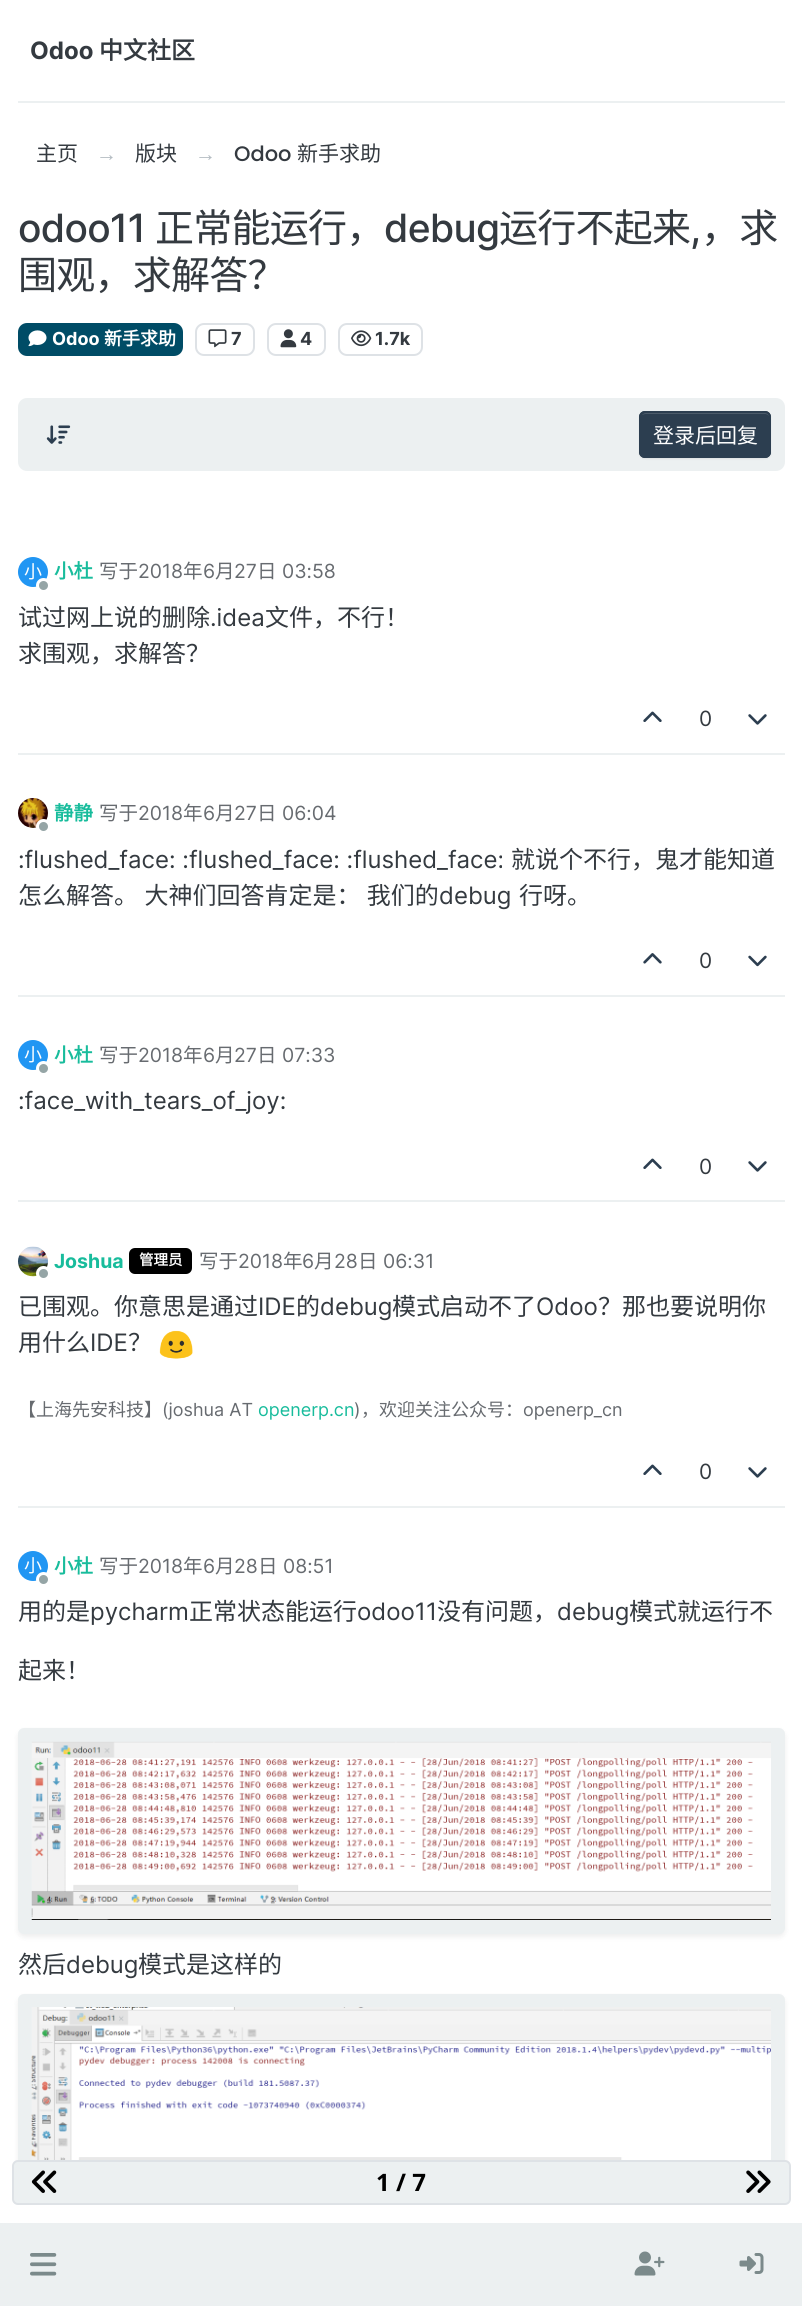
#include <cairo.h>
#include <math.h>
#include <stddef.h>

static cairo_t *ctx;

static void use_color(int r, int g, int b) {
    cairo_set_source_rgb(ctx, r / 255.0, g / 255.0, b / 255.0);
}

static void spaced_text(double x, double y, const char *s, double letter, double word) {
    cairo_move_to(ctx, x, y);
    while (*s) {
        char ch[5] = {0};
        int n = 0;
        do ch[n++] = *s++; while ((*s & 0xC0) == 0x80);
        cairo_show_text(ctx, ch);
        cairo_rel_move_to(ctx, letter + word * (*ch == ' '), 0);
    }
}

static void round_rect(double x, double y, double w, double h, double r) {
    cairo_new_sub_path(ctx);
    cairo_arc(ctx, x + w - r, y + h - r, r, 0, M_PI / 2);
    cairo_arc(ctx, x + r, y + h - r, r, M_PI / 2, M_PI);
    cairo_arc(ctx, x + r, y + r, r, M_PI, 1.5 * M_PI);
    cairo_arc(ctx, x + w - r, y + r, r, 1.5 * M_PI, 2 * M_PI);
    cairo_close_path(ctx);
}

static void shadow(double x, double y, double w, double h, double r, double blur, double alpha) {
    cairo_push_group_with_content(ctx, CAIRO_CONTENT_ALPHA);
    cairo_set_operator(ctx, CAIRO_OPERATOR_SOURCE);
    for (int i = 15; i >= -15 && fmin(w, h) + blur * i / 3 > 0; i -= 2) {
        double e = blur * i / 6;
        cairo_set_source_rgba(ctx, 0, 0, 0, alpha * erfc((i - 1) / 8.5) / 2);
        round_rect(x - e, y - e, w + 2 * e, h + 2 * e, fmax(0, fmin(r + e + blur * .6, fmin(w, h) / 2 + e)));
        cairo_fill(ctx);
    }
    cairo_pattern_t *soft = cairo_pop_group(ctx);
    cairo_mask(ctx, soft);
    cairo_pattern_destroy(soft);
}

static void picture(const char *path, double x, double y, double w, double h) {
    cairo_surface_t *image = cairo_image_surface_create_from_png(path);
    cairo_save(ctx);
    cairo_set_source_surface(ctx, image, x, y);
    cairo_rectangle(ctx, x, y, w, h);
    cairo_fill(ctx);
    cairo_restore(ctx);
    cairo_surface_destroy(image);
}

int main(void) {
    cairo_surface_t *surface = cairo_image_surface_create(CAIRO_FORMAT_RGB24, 802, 2306);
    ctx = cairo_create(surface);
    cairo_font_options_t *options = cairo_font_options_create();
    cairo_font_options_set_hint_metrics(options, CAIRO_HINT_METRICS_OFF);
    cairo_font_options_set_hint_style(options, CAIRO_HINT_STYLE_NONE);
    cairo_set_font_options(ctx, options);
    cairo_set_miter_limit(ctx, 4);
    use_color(255, 255, 255);
    cairo_paint(ctx);
    use_color(236, 240, 241);
    cairo_rectangle(ctx, 18, 101, 767, 2);
    cairo_fill(ctx);
    cairo_select_font_face(ctx, "Inter", CAIRO_FONT_SLANT_NORMAL, CAIRO_FONT_WEIGHT_BOLD);
    cairo_set_font_size(ctx, 24);
    use_color(52, 58, 64);
    cairo_move_to(ctx, 30, 59);
    cairo_show_text(ctx, "Odoo");
    cairo_select_font_face(ctx, "Noto Sans CJK SC", CAIRO_FONT_SLANT_NORMAL, CAIRO_FONT_WEIGHT_BOLD);
    cairo_move_to(ctx, 99, 59);
    cairo_show_text(ctx, "中文社区");
    cairo_select_font_face(ctx, "Noto Sans CJK SC", CAIRO_FONT_SLANT_NORMAL, CAIRO_FONT_WEIGHT_NORMAL);
    cairo_set_font_size(ctx, 21);
    cairo_move_to(ctx, 36, 161);
    cairo_show_text(ctx, "主页");
    cairo_select_font_face(ctx, "Liberation Sans", CAIRO_FONT_SLANT_NORMAL, CAIRO_FONT_WEIGHT_NORMAL);
    use_color(180, 188, 194);
    cairo_move_to(ctx, 96, 161);
    cairo_show_text(ctx, "→");
    cairo_select_font_face(ctx, "Noto Sans CJK SC", CAIRO_FONT_SLANT_NORMAL, CAIRO_FONT_WEIGHT_NORMAL);
    use_color(52, 58, 64);
    cairo_move_to(ctx, 135, 161);
    cairo_show_text(ctx, "版块");
    cairo_select_font_face(ctx, "Liberation Sans", CAIRO_FONT_SLANT_NORMAL, CAIRO_FONT_WEIGHT_NORMAL);
    use_color(180, 188, 194);
    cairo_move_to(ctx, 195, 161);
    cairo_show_text(ctx, "→");
    cairo_select_font_face(ctx, "Poppins Medium", CAIRO_FONT_SLANT_NORMAL, CAIRO_FONT_WEIGHT_NORMAL);
    use_color(52, 58, 64);
    cairo_move_to(ctx, 234, 161);
    cairo_show_text(ctx, "Odoo");
    cairo_select_font_face(ctx, "Noto Sans CJK SC", CAIRO_FONT_SLANT_NORMAL, CAIRO_FONT_WEIGHT_NORMAL);
    cairo_move_to(ctx, 297, 161);
    cairo_show_text(ctx, "新手求助");
    cairo_select_font_face(ctx, "Inter Medium", CAIRO_FONT_SLANT_NORMAL, CAIRO_FONT_WEIGHT_NORMAL);
    cairo_set_font_size(ctx, 39);
    spaced_text(18, 242, "odoo11", -0.75, 0);
    cairo_select_font_face(ctx, "Noto Sans CJK SC", CAIRO_FONT_SLANT_NORMAL, CAIRO_FONT_WEIGHT_NORMAL);
    spaced_text(155, 242, "正常能运行，", -0.75, 0);
    cairo_select_font_face(ctx, "Inter Medium", CAIRO_FONT_SLANT_NORMAL, CAIRO_FONT_WEIGHT_NORMAL);
    spaced_text(384, 242, "debug", -0.75, 0);
    cairo_select_font_face(ctx, "Noto Sans CJK SC", CAIRO_FONT_SLANT_NORMAL, CAIRO_FONT_WEIGHT_NORMAL);
    spaced_text(499, 242, "运行不起来", -0.75, 0);
    cairo_select_font_face(ctx, "Inter Medium", CAIRO_FONT_SLANT_NORMAL, CAIRO_FONT_WEIGHT_NORMAL);
    spaced_text(690, 242, ",", -0.75, 0);
    cairo_select_font_face(ctx, "Noto Sans CJK SC", CAIRO_FONT_SLANT_NORMAL, CAIRO_FONT_WEIGHT_NORMAL);
    spaced_text(701, 242, "，求", -0.75, 0);
    spaced_text(18, 289, "围观，求解答？", -0.75, 0);
    use_color(0, 76, 102);
    round_rect(19, 324, 163, 31, 8);
    cairo_fill_preserve(ctx);
    cairo_stroke(ctx);
    picture("img1.png", 28, 330, 19, 17);
    cairo_select_font_face(ctx, "Inter", CAIRO_FONT_SLANT_NORMAL, CAIRO_FONT_WEIGHT_BOLD);
    cairo_set_font_size(ctx, 18);
    use_color(255, 255, 255);
    cairo_move_to(ctx, 52, 345);
    cairo_show_text(ctx, "Odoo");
    cairo_select_font_face(ctx, "Noto Sans CJK SC", CAIRO_FONT_SLANT_NORMAL, CAIRO_FONT_WEIGHT_BOLD);
    cairo_move_to(ctx, 104, 345);
    cairo_show_text(ctx, "新手求助");
    round_rect(196, 324, 58, 31, 8);
    use_color(222, 226, 230);
    cairo_stroke(ctx);
    picture("img2.png", 208, 329, 19, 19);
    cairo_select_font_face(ctx, "Inter", CAIRO_FONT_SLANT_NORMAL, CAIRO_FONT_WEIGHT_BOLD);
    use_color(52, 58, 64);
    cairo_move_to(ctx, 231, 345);
    cairo_show_text(ctx, "7");
    round_rect(268, 324, 57, 31, 8);
    use_color(222, 226, 230);
    cairo_stroke(ctx);
    picture("img3.png", 280, 329, 17, 19);
    use_color(52, 58, 64);
    cairo_move_to(ctx, 300, 345);
    cairo_show_text(ctx, "4");
    round_rect(339, 324, 83, 31, 8);
    use_color(222, 226, 230);
    cairo_stroke(ctx);
    picture("img4.png", 351, 330, 21, 17);
    use_color(52, 58, 64);
    cairo_move_to(ctx, 375, 345);
    cairo_show_text(ctx, "1.7k");
    use_color(236, 240, 241);
    round_rect(19, 399, 765, 71, 8);
    cairo_fill_preserve(ctx);
    cairo_stroke(ctx);
    picture("img5.png", 46, 425, 25, 19);
    use_color(0, 0, 0);
    shadow(639, 413, 132, 46, 6, 1, 0.07);
    use_color(44, 62, 80);
    round_rect(639, 411, 132, 47, 6);
    cairo_fill(ctx);
    use_color(76, 91, 106);
    cairo_new_path(ctx);
    cairo_move_to(ctx, 645, 414);
    cairo_line_to(ctx, 765, 414);
    cairo_curve_to(ctx, 767, 414, 770, 416, 770, 418);
    cairo_curve_to(ctx, 770, 415, 768, 413, 765, 413);
    cairo_line_to(ctx, 646, 413);
    cairo_curve_to(ctx, 644, 413, 643, 414, 642, 415);
    cairo_close_path(ctx);
    cairo_fill(ctx);
    round_rect(640, 412, 130, 45, 5);
    use_color(44, 62, 80);
    cairo_stroke(ctx);
    cairo_select_font_face(ctx, "Noto Sans CJK SC", CAIRO_FONT_SLANT_NORMAL, CAIRO_FONT_WEIGHT_NORMAL);
    cairo_set_font_size(ctx, 21);
    use_color(255, 255, 255);
    cairo_move_to(ctx, 653, 443);
    cairo_show_text(ctx, "登录后回复");
    use_color(33, 150, 243);
    cairo_new_path(ctx);
    cairo_arc(ctx, 33, 572, 15, 0, 2 * M_PI);
    cairo_fill(ctx);
    cairo_set_font_size(ctx, 18);
    use_color(255, 255, 255);
    cairo_move_to(ctx, 24, 578);
    cairo_show_text(ctx, "小");
    use_color(149, 165, 166);
    cairo_new_path(ctx);
    cairo_arc(ctx, 43.5, 585.5, 6, 0, 2 * M_PI);
    cairo_fill_preserve(ctx);
    use_color(255, 255, 255);
    cairo_set_line_width(ctx, 3);
    cairo_stroke(ctx);
    cairo_select_font_face(ctx, "Noto Sans CJK SC", CAIRO_FONT_SLANT_NORMAL, CAIRO_FONT_WEIGHT_BOLD);
    cairo_set_font_size(ctx, 19.5);
    use_color(24, 188, 156);
    cairo_move_to(ctx, 54, 578);
    cairo_show_text(ctx, "小杜");
    cairo_select_font_face(ctx, "Noto Sans CJK SC", CAIRO_FONT_SLANT_NORMAL, CAIRO_FONT_WEIGHT_NORMAL);
    use_color(103, 107, 112);
    cairo_move_to(ctx, 99, 578);
    cairo_show_text(ctx, "写于");
    cairo_select_font_face(ctx, "Inter", CAIRO_FONT_SLANT_NORMAL, CAIRO_FONT_WEIGHT_NORMAL);
    cairo_move_to(ctx, 138, 578);
    cairo_show_text(ctx, "2018");
    cairo_select_font_face(ctx, "Noto Sans CJK SC", CAIRO_FONT_SLANT_NORMAL, CAIRO_FONT_WEIGHT_NORMAL);
    cairo_move_to(ctx, 183, 578);
    cairo_show_text(ctx, "年");
    cairo_select_font_face(ctx, "Inter", CAIRO_FONT_SLANT_NORMAL, CAIRO_FONT_WEIGHT_NORMAL);
    cairo_move_to(ctx, 203, 578);
    cairo_show_text(ctx, "6");
    cairo_select_font_face(ctx, "Noto Sans CJK SC", CAIRO_FONT_SLANT_NORMAL, CAIRO_FONT_WEIGHT_NORMAL);
    cairo_move_to(ctx, 215, 578);
    cairo_show_text(ctx, "月");
    cairo_select_font_face(ctx, "Inter", CAIRO_FONT_SLANT_NORMAL, CAIRO_FONT_WEIGHT_NORMAL);
    cairo_move_to(ctx, 234, 578);
    cairo_show_text(ctx, "27");
    cairo_select_font_face(ctx, "Noto Sans CJK SC", CAIRO_FONT_SLANT_NORMAL, CAIRO_FONT_WEIGHT_NORMAL);
    cairo_move_to(ctx, 257, 578);
    cairo_show_text(ctx, "日");
    cairo_select_font_face(ctx, "Inter", CAIRO_FONT_SLANT_NORMAL, CAIRO_FONT_WEIGHT_NORMAL);
    cairo_move_to(ctx, 282, 578);
    cairo_show_text(ctx, "03:58");
    cairo_select_font_face(ctx, "Noto Sans CJK SC", CAIRO_FONT_SLANT_NORMAL, CAIRO_FONT_WEIGHT_NORMAL);
    cairo_set_font_size(ctx, 24);
    use_color(52, 58, 64);
    cairo_move_to(ctx, 18, 626);
    cairo_show_text(ctx, "试过网上说的删除");
    cairo_select_font_face(ctx, "Inter", CAIRO_FONT_SLANT_NORMAL, CAIRO_FONT_WEIGHT_NORMAL);
    cairo_move_to(ctx, 210, 626);
    cairo_show_text(ctx, ".idea");
    cairo_select_font_face(ctx, "Noto Sans CJK SC", CAIRO_FONT_SLANT_NORMAL, CAIRO_FONT_WEIGHT_NORMAL);
    cairo_move_to(ctx, 265, 626);
    cairo_show_text(ctx, "文件，不行！");
    cairo_move_to(ctx, 18, 662);
    cairo_show_text(ctx, "求围观，求解答？");
    use_color(236, 240, 241);
    cairo_rectangle(ctx, 18, 753, 767, 2);
    cairo_fill(ctx);
    picture("img6.png", 643, 711, 19, 11);
    cairo_select_font_face(ctx, "Inter", CAIRO_FONT_SLANT_NORMAL, CAIRO_FONT_WEIGHT_NORMAL);
    cairo_set_font_size(ctx, 21);
    use_color(52, 58, 64);
    cairo_move_to(ctx, 699, 726);
    cairo_show_text(ctx, "0");
    picture("img7.png", 748, 714, 19, 11);
    picture("img8.png", 18, 798, 30, 30);
    use_color(149, 165, 166);
    cairo_arc(ctx, 43.5, 826.5, 6, 0, 2 * M_PI);
    cairo_fill_preserve(ctx);
    use_color(255, 255, 255);
    cairo_stroke(ctx);
    cairo_select_font_face(ctx, "Noto Sans CJK SC", CAIRO_FONT_SLANT_NORMAL, CAIRO_FONT_WEIGHT_BOLD);
    cairo_set_font_size(ctx, 19.5);
    use_color(24, 188, 156);
    cairo_move_to(ctx, 54, 820);
    cairo_show_text(ctx, "静静");
    cairo_select_font_face(ctx, "Noto Sans CJK SC", CAIRO_FONT_SLANT_NORMAL, CAIRO_FONT_WEIGHT_NORMAL);
    use_color(103, 107, 112);
    cairo_move_to(ctx, 99, 820);
    cairo_show_text(ctx, "写于");
    cairo_select_font_face(ctx, "Inter", CAIRO_FONT_SLANT_NORMAL, CAIRO_FONT_WEIGHT_NORMAL);
    cairo_move_to(ctx, 138, 820);
    cairo_show_text(ctx, "2018");
    cairo_select_font_face(ctx, "Noto Sans CJK SC", CAIRO_FONT_SLANT_NORMAL, CAIRO_FONT_WEIGHT_NORMAL);
    cairo_move_to(ctx, 183, 820);
    cairo_show_text(ctx, "年");
    cairo_select_font_face(ctx, "Inter", CAIRO_FONT_SLANT_NORMAL, CAIRO_FONT_WEIGHT_NORMAL);
    cairo_move_to(ctx, 203, 820);
    cairo_show_text(ctx, "6");
    cairo_select_font_face(ctx, "Noto Sans CJK SC", CAIRO_FONT_SLANT_NORMAL, CAIRO_FONT_WEIGHT_NORMAL);
    cairo_move_to(ctx, 215, 820);
    cairo_show_text(ctx, "月");
    cairo_select_font_face(ctx, "Inter", CAIRO_FONT_SLANT_NORMAL, CAIRO_FONT_WEIGHT_NORMAL);
    cairo_move_to(ctx, 234, 820);
    cairo_show_text(ctx, "27");
    cairo_select_font_face(ctx, "Noto Sans CJK SC", CAIRO_FONT_SLANT_NORMAL, CAIRO_FONT_WEIGHT_NORMAL);
    cairo_move_to(ctx, 257, 820);
    cairo_show_text(ctx, "日");
    cairo_select_font_face(ctx, "Inter", CAIRO_FONT_SLANT_NORMAL, CAIRO_FONT_WEIGHT_NORMAL);
    cairo_move_to(ctx, 282, 820);
    cairo_show_text(ctx, "06:04");
    cairo_set_font_size(ctx, 24);
    use_color(52, 58, 64);
    cairo_move_to(ctx, 18, 868);
    cairo_show_text(ctx, ":flushed_face: :flushed_face: :flushed_face:");
    cairo_select_font_face(ctx, "Noto Sans CJK SC", CAIRO_FONT_SLANT_NORMAL, CAIRO_FONT_WEIGHT_NORMAL);
    cairo_move_to(ctx, 511, 868);
    cairo_show_text(ctx, "就说个不行，鬼才能知道");
    spaced_text(18, 904, "怎么解答。 大神们回答肯定是： 我们的", 0, 1);
    cairo_select_font_face(ctx, "Inter", CAIRO_FONT_SLANT_NORMAL, CAIRO_FONT_WEIGHT_NORMAL);
    cairo_move_to(ctx, 439, 904);
    cairo_show_text(ctx, "debug");
    cairo_select_font_face(ctx, "Noto Sans CJK SC", CAIRO_FONT_SLANT_NORMAL, CAIRO_FONT_WEIGHT_NORMAL);
    cairo_move_to(ctx, 519, 904);
    cairo_show_text(ctx, "行呀。");
    use_color(236, 240, 241);
    cairo_rectangle(ctx, 18, 995, 767, 2);
    cairo_fill(ctx);
    picture("img9.png", 643, 953, 19, 11);
    cairo_select_font_face(ctx, "Inter", CAIRO_FONT_SLANT_NORMAL, CAIRO_FONT_WEIGHT_NORMAL);
    cairo_set_font_size(ctx, 21);
    use_color(52, 58, 64);
    cairo_move_to(ctx, 699, 968);
    cairo_show_text(ctx, "0");
    picture("img10.png", 748, 955, 19, 12);
    use_color(33, 150, 243);
    cairo_arc(ctx, 33, 1055, 15, 0, 2 * M_PI);
    cairo_fill(ctx);
    cairo_select_font_face(ctx, "Noto Sans CJK SC", CAIRO_FONT_SLANT_NORMAL, CAIRO_FONT_WEIGHT_NORMAL);
    cairo_set_font_size(ctx, 18);
    use_color(255, 255, 255);
    cairo_move_to(ctx, 24, 1061);
    cairo_show_text(ctx, "小");
    use_color(149, 165, 166);
    cairo_new_path(ctx);
    cairo_arc(ctx, 43.5, 1068.5, 6, 0, 2 * M_PI);
    cairo_fill_preserve(ctx);
    use_color(255, 255, 255);
    cairo_stroke(ctx);
    cairo_select_font_face(ctx, "Noto Sans CJK SC", CAIRO_FONT_SLANT_NORMAL, CAIRO_FONT_WEIGHT_BOLD);
    cairo_set_font_size(ctx, 19.5);
    use_color(24, 188, 156);
    cairo_move_to(ctx, 54, 1062);
    cairo_show_text(ctx, "小杜");
    cairo_select_font_face(ctx, "Noto Sans CJK SC", CAIRO_FONT_SLANT_NORMAL, CAIRO_FONT_WEIGHT_NORMAL);
    use_color(103, 107, 112);
    cairo_move_to(ctx, 99, 1062);
    cairo_show_text(ctx, "写于");
    cairo_select_font_face(ctx, "Inter", CAIRO_FONT_SLANT_NORMAL, CAIRO_FONT_WEIGHT_NORMAL);
    cairo_move_to(ctx, 138, 1062);
    cairo_show_text(ctx, "2018");
    cairo_select_font_face(ctx, "Noto Sans CJK SC", CAIRO_FONT_SLANT_NORMAL, CAIRO_FONT_WEIGHT_NORMAL);
    cairo_move_to(ctx, 183, 1062);
    cairo_show_text(ctx, "年");
    cairo_select_font_face(ctx, "Inter", CAIRO_FONT_SLANT_NORMAL, CAIRO_FONT_WEIGHT_NORMAL);
    cairo_move_to(ctx, 203, 1062);
    cairo_show_text(ctx, "6");
    cairo_select_font_face(ctx, "Noto Sans CJK SC", CAIRO_FONT_SLANT_NORMAL, CAIRO_FONT_WEIGHT_NORMAL);
    cairo_move_to(ctx, 215, 1062);
    cairo_show_text(ctx, "月");
    cairo_select_font_face(ctx, "Inter", CAIRO_FONT_SLANT_NORMAL, CAIRO_FONT_WEIGHT_NORMAL);
    cairo_move_to(ctx, 234, 1062);
    cairo_show_text(ctx, "27");
    cairo_select_font_face(ctx, "Noto Sans CJK SC", CAIRO_FONT_SLANT_NORMAL, CAIRO_FONT_WEIGHT_NORMAL);
    cairo_move_to(ctx, 257, 1062);
    cairo_show_text(ctx, "日");
    cairo_select_font_face(ctx, "Inter", CAIRO_FONT_SLANT_NORMAL, CAIRO_FONT_WEIGHT_NORMAL);
    cairo_move_to(ctx, 282, 1062);
    cairo_show_text(ctx, "07:33");
    cairo_set_font_size(ctx, 24);
    use_color(52, 58, 64);
    cairo_move_to(ctx, 18, 1109);
    cairo_show_text(ctx, ":face_with_tears_of_joy:");
    use_color(236, 240, 241);
    cairo_rectangle(ctx, 18, 1200, 767, 2);
    cairo_fill(ctx);
    picture("img6.png", 643, 1158, 19, 11);
    cairo_set_font_size(ctx, 21);
    use_color(52, 58, 64);
    cairo_move_to(ctx, 699, 1174);
    cairo_show_text(ctx, "0");
    picture("img7.png", 748, 1161, 19, 11);
    picture("img11.png", 18, 1246, 30, 31);
    use_color(149, 165, 166);
    cairo_arc(ctx, 43.5, 1273.5, 6, 0, 2 * M_PI);
    cairo_fill_preserve(ctx);
    use_color(255, 255, 255);
    cairo_stroke(ctx);
    cairo_select_font_face(ctx, "Inter", CAIRO_FONT_SLANT_NORMAL, CAIRO_FONT_WEIGHT_BOLD);
    cairo_set_font_size(ctx, 19.5);
    use_color(24, 188, 156);
    cairo_move_to(ctx, 54, 1268);
    cairo_show_text(ctx, "Joshua");
    use_color(0, 0, 0);
    round_rect(129, 1248, 63, 26, 6);
    cairo_fill(ctx);
    cairo_select_font_face(ctx, "Noto Sans CJK SC", CAIRO_FONT_SLANT_NORMAL, CAIRO_FONT_WEIGHT_BOLD);
    cairo_set_font_size(ctx, 14.5);
    use_color(255, 255, 255);
    cairo_move_to(ctx, 139, 1265);
    cairo_show_text(ctx, "管理员");
    cairo_select_font_face(ctx, "Noto Sans CJK SC", CAIRO_FONT_SLANT_NORMAL, CAIRO_FONT_WEIGHT_NORMAL);
    cairo_set_font_size(ctx, 19.5);
    use_color(103, 107, 112);
    cairo_move_to(ctx, 199, 1268);
    cairo_show_text(ctx, "写于");
    cairo_select_font_face(ctx, "Inter", CAIRO_FONT_SLANT_NORMAL, CAIRO_FONT_WEIGHT_NORMAL);
    cairo_move_to(ctx, 238, 1268);
    cairo_show_text(ctx, "2018");
    cairo_select_font_face(ctx, "Noto Sans CJK SC", CAIRO_FONT_SLANT_NORMAL, CAIRO_FONT_WEIGHT_NORMAL);
    cairo_move_to(ctx, 283, 1268);
    cairo_show_text(ctx, "年");
    cairo_select_font_face(ctx, "Inter", CAIRO_FONT_SLANT_NORMAL, CAIRO_FONT_WEIGHT_NORMAL);
    cairo_move_to(ctx, 302, 1268);
    cairo_show_text(ctx, "6");
    cairo_select_font_face(ctx, "Noto Sans CJK SC", CAIRO_FONT_SLANT_NORMAL, CAIRO_FONT_WEIGHT_NORMAL);
    cairo_move_to(ctx, 314, 1268);
    cairo_show_text(ctx, "月");
    cairo_select_font_face(ctx, "Inter", CAIRO_FONT_SLANT_NORMAL, CAIRO_FONT_WEIGHT_NORMAL);
    cairo_move_to(ctx, 334, 1268);
    cairo_show_text(ctx, "28");
    cairo_select_font_face(ctx, "Noto Sans CJK SC", CAIRO_FONT_SLANT_NORMAL, CAIRO_FONT_WEIGHT_NORMAL);
    cairo_move_to(ctx, 358, 1268);
    cairo_show_text(ctx, "日");
    cairo_select_font_face(ctx, "Inter", CAIRO_FONT_SLANT_NORMAL, CAIRO_FONT_WEIGHT_NORMAL);
    cairo_move_to(ctx, 383, 1268);
    cairo_show_text(ctx, "06:31");
    cairo_select_font_face(ctx, "Noto Sans CJK SC", CAIRO_FONT_SLANT_NORMAL, CAIRO_FONT_WEIGHT_NORMAL);
    cairo_set_font_size(ctx, 24);
    use_color(52, 58, 64);
    cairo_move_to(ctx, 18, 1315);
    cairo_show_text(ctx, "已围观。你意思是通过");
    cairo_select_font_face(ctx, "Inter", CAIRO_FONT_SLANT_NORMAL, CAIRO_FONT_WEIGHT_NORMAL);
    cairo_move_to(ctx, 258, 1315);
    cairo_show_text(ctx, "IDE");
    cairo_select_font_face(ctx, "Noto Sans CJK SC", CAIRO_FONT_SLANT_NORMAL, CAIRO_FONT_WEIGHT_NORMAL);
    cairo_move_to(ctx, 296, 1315);
    cairo_show_text(ctx, "的");
    cairo_select_font_face(ctx, "Inter", CAIRO_FONT_SLANT_NORMAL, CAIRO_FONT_WEIGHT_NORMAL);
    cairo_move_to(ctx, 320, 1315);
    cairo_show_text(ctx, "debug");
    cairo_select_font_face(ctx, "Noto Sans CJK SC", CAIRO_FONT_SLANT_NORMAL, CAIRO_FONT_WEIGHT_NORMAL);
    cairo_move_to(ctx, 392, 1315);
    cairo_show_text(ctx, "模式启动不了");
    cairo_select_font_face(ctx, "Inter", CAIRO_FONT_SLANT_NORMAL, CAIRO_FONT_WEIGHT_NORMAL);
    cairo_move_to(ctx, 536, 1315);
    cairo_show_text(ctx, "Odoo");
    cairo_select_font_face(ctx, "Noto Sans CJK SC", CAIRO_FONT_SLANT_NORMAL, CAIRO_FONT_WEIGHT_NORMAL);
    cairo_move_to(ctx, 598, 1315);
    cairo_show_text(ctx, "？那也要说明你");
    cairo_move_to(ctx, 18, 1351);
    cairo_show_text(ctx, "用什么");
    cairo_select_font_face(ctx, "Inter", CAIRO_FONT_SLANT_NORMAL, CAIRO_FONT_WEIGHT_NORMAL);
    cairo_move_to(ctx, 90, 1351);
    cairo_show_text(ctx, "IDE");
    cairo_select_font_face(ctx, "Noto Sans CJK SC", CAIRO_FONT_SLANT_NORMAL, CAIRO_FONT_WEIGHT_NORMAL);
    cairo_move_to(ctx, 128, 1351);
    cairo_show_text(ctx, "？");
    picture("img12.png", 159, 1330, 34, 29);
    use_color(236, 240, 241);
    cairo_rectangle(ctx, 18, 1506, 767, 2);
    cairo_fill(ctx);
    cairo_set_font_size(ctx, 18);
    use_color(103, 107, 112);
    cairo_move_to(ctx, 18, 1416);
    cairo_show_text(ctx, "【上海先安科技】");
    cairo_select_font_face(ctx, "Inter", CAIRO_FONT_SLANT_NORMAL, CAIRO_FONT_WEIGHT_NORMAL);
    cairo_move_to(ctx, 162, 1416);
    cairo_show_text(ctx, "(joshua AT");
    use_color(24, 188, 156);
    cairo_move_to(ctx, 258, 1416);
    cairo_show_text(ctx, "openerp.cn");
    use_color(103, 107, 112);
    cairo_move_to(ctx, 354, 1416);
    cairo_show_text(ctx, ")");
    cairo_select_font_face(ctx, "Noto Sans CJK SC", CAIRO_FONT_SLANT_NORMAL, CAIRO_FONT_WEIGHT_NORMAL);
    cairo_move_to(ctx, 361, 1416);
    cairo_show_text(ctx, "，欢迎关注公众号：");
    cairo_select_font_face(ctx, "Inter", CAIRO_FONT_SLANT_NORMAL, CAIRO_FONT_WEIGHT_NORMAL);
    cairo_move_to(ctx, 523, 1416);
    cairo_show_text(ctx, "openerp_cn");
    picture("img6.png", 643, 1464, 19, 11);
    cairo_set_font_size(ctx, 21);
    use_color(52, 58, 64);
    cairo_move_to(ctx, 699, 1479);
    cairo_show_text(ctx, "0");
    picture("img7.png", 748, 1467, 19, 11);
    use_color(33, 150, 243);
    cairo_arc(ctx, 33, 1566, 15, 0, 2 * M_PI);
    cairo_fill(ctx);
    cairo_select_font_face(ctx, "Noto Sans CJK SC", CAIRO_FONT_SLANT_NORMAL, CAIRO_FONT_WEIGHT_NORMAL);
    cairo_set_font_size(ctx, 18);
    use_color(255, 255, 255);
    cairo_move_to(ctx, 24, 1572);
    cairo_show_text(ctx, "小");
    use_color(149, 165, 166);
    cairo_new_path(ctx);
    cairo_arc(ctx, 43.5, 1579.5, 6, 0, 2 * M_PI);
    cairo_fill_preserve(ctx);
    use_color(255, 255, 255);
    cairo_stroke(ctx);
    cairo_select_font_face(ctx, "Noto Sans CJK SC", CAIRO_FONT_SLANT_NORMAL, CAIRO_FONT_WEIGHT_BOLD);
    cairo_set_font_size(ctx, 19.5);
    use_color(24, 188, 156);
    cairo_move_to(ctx, 54, 1573);
    cairo_show_text(ctx, "小杜");
    cairo_select_font_face(ctx, "Noto Sans CJK SC", CAIRO_FONT_SLANT_NORMAL, CAIRO_FONT_WEIGHT_NORMAL);
    use_color(103, 107, 112);
    cairo_move_to(ctx, 99, 1573);
    cairo_show_text(ctx, "写于");
    cairo_select_font_face(ctx, "Inter", CAIRO_FONT_SLANT_NORMAL, CAIRO_FONT_WEIGHT_NORMAL);
    cairo_move_to(ctx, 138, 1573);
    cairo_show_text(ctx, "2018");
    cairo_select_font_face(ctx, "Noto Sans CJK SC", CAIRO_FONT_SLANT_NORMAL, CAIRO_FONT_WEIGHT_NORMAL);
    cairo_move_to(ctx, 183, 1573);
    cairo_show_text(ctx, "年");
    cairo_select_font_face(ctx, "Inter", CAIRO_FONT_SLANT_NORMAL, CAIRO_FONT_WEIGHT_NORMAL);
    cairo_move_to(ctx, 203, 1573);
    cairo_show_text(ctx, "6");
    cairo_select_font_face(ctx, "Noto Sans CJK SC", CAIRO_FONT_SLANT_NORMAL, CAIRO_FONT_WEIGHT_NORMAL);
    cairo_move_to(ctx, 215, 1573);
    cairo_show_text(ctx, "月");
    cairo_select_font_face(ctx, "Inter", CAIRO_FONT_SLANT_NORMAL, CAIRO_FONT_WEIGHT_NORMAL);
    cairo_move_to(ctx, 234, 1573);
    cairo_show_text(ctx, "28");
    cairo_select_font_face(ctx, "Noto Sans CJK SC", CAIRO_FONT_SLANT_NORMAL, CAIRO_FONT_WEIGHT_NORMAL);
    cairo_move_to(ctx, 258, 1573);
    cairo_show_text(ctx, "日");
    cairo_select_font_face(ctx, "Inter", CAIRO_FONT_SLANT_NORMAL, CAIRO_FONT_WEIGHT_NORMAL);
    cairo_move_to(ctx, 283, 1573);
    cairo_show_text(ctx, "08:51");
    cairo_select_font_face(ctx, "Noto Sans CJK SC", CAIRO_FONT_SLANT_NORMAL, CAIRO_FONT_WEIGHT_NORMAL);
    cairo_set_font_size(ctx, 24);
    use_color(52, 58, 64);
    cairo_move_to(ctx, 18, 1620);
    cairo_show_text(ctx, "用的是");
    cairo_select_font_face(ctx, "Inter", CAIRO_FONT_SLANT_NORMAL, CAIRO_FONT_WEIGHT_NORMAL);
    cairo_move_to(ctx, 90, 1620);
    cairo_show_text(ctx, "pycharm");
    cairo_select_font_face(ctx, "Noto Sans CJK SC", CAIRO_FONT_SLANT_NORMAL, CAIRO_FONT_WEIGHT_NORMAL);
    cairo_move_to(ctx, 189, 1620);
    cairo_show_text(ctx, "正常状态能运行");
    cairo_select_font_face(ctx, "Inter", CAIRO_FONT_SLANT_NORMAL, CAIRO_FONT_WEIGHT_NORMAL);
    cairo_move_to(ctx, 357, 1620);
    cairo_show_text(ctx, "odoo11");
    cairo_select_font_face(ctx, "Noto Sans CJK SC", CAIRO_FONT_SLANT_NORMAL, CAIRO_FONT_WEIGHT_NORMAL);
    cairo_move_to(ctx, 437, 1620);
    cairo_show_text(ctx, "没有问题，");
    cairo_select_font_face(ctx, "Inter", CAIRO_FONT_SLANT_NORMAL, CAIRO_FONT_WEIGHT_NORMAL);
    cairo_move_to(ctx, 557, 1620);
    cairo_show_text(ctx, "debug");
    cairo_select_font_face(ctx, "Noto Sans CJK SC", CAIRO_FONT_SLANT_NORMAL, CAIRO_FONT_WEIGHT_NORMAL);
    cairo_move_to(ctx, 629, 1620);
    cairo_show_text(ctx, "模式就运行不");
    cairo_move_to(ctx, 18, 1679);
    cairo_show_text(ctx, "起来！");
    use_color(0, 0, 0);
    shadow(18, 1731, 767, 206, 6, 3, 0.07);
    use_color(236, 240, 241);
    round_rect(19, 1729, 765, 204, 5);
    cairo_fill_preserve(ctx);
    cairo_set_line_width(ctx, 2);
    cairo_stroke(ctx);
    picture("img13.png", 31, 1741, 740, 179);
    use_color(52, 58, 64);
    cairo_move_to(ctx, 18, 1973);
    cairo_show_text(ctx, "然后");
    cairo_select_font_face(ctx, "Inter", CAIRO_FONT_SLANT_NORMAL, CAIRO_FONT_WEIGHT_NORMAL);
    cairo_move_to(ctx, 66, 1973);
    cairo_show_text(ctx, "debug");
    cairo_select_font_face(ctx, "Noto Sans CJK SC", CAIRO_FONT_SLANT_NORMAL, CAIRO_FONT_WEIGHT_NORMAL);
    cairo_move_to(ctx, 138, 1973);
    cairo_show_text(ctx, "模式是这样的");
    use_color(0, 0, 0);
    shadow(18, 1997, 767, 180, 6, 3, 0.07);
    use_color(236, 240, 241);
    round_rect(19, 1995, 765, 178, 5);
    cairo_fill_preserve(ctx);
    cairo_stroke(ctx);
    picture("img14.png", 31, 2007, 740, 153);
    round_rect(13, 2161, 777, 43, 5);
    cairo_fill_preserve(ctx);
    use_color(222, 226, 230);
    cairo_stroke(ctx);
    picture("img15.png", 31, 2170, 26, 23);
    cairo_select_font_face(ctx, "Noto Sans", CAIRO_FONT_SLANT_NORMAL, CAIRO_FONT_WEIGHT_BOLD);
    use_color(0, 0, 0);
    cairo_move_to(ctx, 376, 2191);
    cairo_show_text(ctx, "1 / 7");
    picture("img16.png", 746, 2170, 25, 23);
    use_color(236, 240, 241);
    cairo_rectangle(ctx, 0, 2223, 802, 83);
    cairo_fill(ctx);
    picture("img17.png", 30, 2253, 27, 23);
    picture("img18.png", 634, 2251, 31, 25);
    picture("img19.png", 739, 2253, 25, 21);
    cairo_surface_write_to_png(surface, "result.png");
    cairo_font_options_destroy(options);
    cairo_destroy(ctx);
    cairo_surface_destroy(surface);
    return 0;
}
